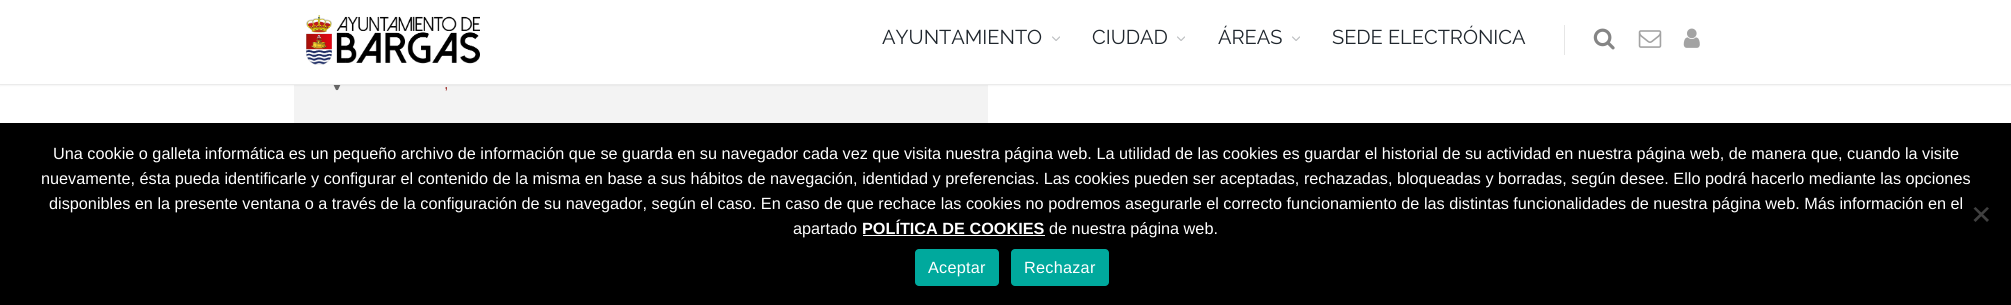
#include <cairo.h>
#include <math.h>
#include <stddef.h>

static cairo_t *ctx;

static void use_color(int r, int g, int b) {
    cairo_set_source_rgb(ctx, r / 255.0, g / 255.0, b / 255.0);
}

static void spaced_text(double x, double y, const char *s, double letter, double word) {
    cairo_move_to(ctx, x, y);
    while (*s) {
        char ch[5] = {0};
        int n = 0;
        do ch[n++] = *s++; while ((*s & 0xC0) == 0x80);
        cairo_show_text(ctx, ch);
        cairo_rel_move_to(ctx, letter + word * (*ch == ' '), 0);
    }
}

static void round_rect(double x, double y, double w, double h, double r) {
    cairo_new_sub_path(ctx);
    cairo_arc(ctx, x + w - r, y + h - r, r, 0, M_PI / 2);
    cairo_arc(ctx, x + r, y + h - r, r, M_PI / 2, M_PI);
    cairo_arc(ctx, x + r, y + r, r, M_PI, 1.5 * M_PI);
    cairo_arc(ctx, x + w - r, y + r, r, 1.5 * M_PI, 2 * M_PI);
    cairo_close_path(ctx);
}

static void shadow(double x, double y, double w, double h, double r, double blur, double alpha) {
    cairo_push_group_with_content(ctx, CAIRO_CONTENT_ALPHA);
    cairo_set_operator(ctx, CAIRO_OPERATOR_SOURCE);
    for (int i = 15; i >= -15 && fmin(w, h) + blur * i / 3 > 0; i -= 2) {
        double e = blur * i / 6;
        cairo_set_source_rgba(ctx, 0, 0, 0, alpha * erfc((i - 1) / 8.5) / 2);
        round_rect(x - e, y - e, w + 2 * e, h + 2 * e, fmax(0, fmin(r + e + blur * .6, fmin(w, h) / 2 + e)));
        cairo_fill(ctx);
    }
    cairo_pattern_t *soft = cairo_pop_group(ctx);
    cairo_mask(ctx, soft);
    cairo_pattern_destroy(soft);
}

static void picture(const char *path, double x, double y, double w, double h) {
    cairo_surface_t *image = cairo_image_surface_create_from_png(path);
    cairo_save(ctx);
    cairo_set_source_surface(ctx, image, x, y);
    cairo_rectangle(ctx, x, y, w, h);
    cairo_fill(ctx);
    cairo_restore(ctx);
    cairo_surface_destroy(image);
}

int main(void) {
    cairo_surface_t *surface = cairo_image_surface_create(CAIRO_FORMAT_RGB24, 2011, 305);
    ctx = cairo_create(surface);
    cairo_font_options_t *options = cairo_font_options_create();
    cairo_font_options_set_hint_metrics(options, CAIRO_HINT_METRICS_OFF);
    cairo_font_options_set_hint_style(options, CAIRO_HINT_STYLE_NONE);
    cairo_set_font_options(ctx, options);
    cairo_set_miter_limit(ctx, 4);
    use_color(255, 255, 255);
    cairo_paint(ctx);
    use_color(243, 243, 243);
    cairo_rectangle(ctx, 294, 85, 694, 38);
    cairo_fill(ctx);
    picture("img6.png", 333, 85, 8, 6);
    use_color(0, 0, 0);
    shadow(0, 0, 2011, 85, 0, 1, 0.1);
    use_color(255, 255, 255);
    cairo_rectangle(ctx, 0, 0, 2011, 84);
    cairo_fill(ctx);
    use_color(235, 235, 235);
    cairo_rectangle(ctx, 0, 84, 2011, 1);
    cairo_fill(ctx);
    picture("img1.png", 306, 15, 174, 50);
    cairo_select_font_face(ctx, "Raleway", CAIRO_FONT_SLANT_NORMAL, CAIRO_FONT_WEIGHT_NORMAL);
    cairo_set_font_size(ctx, 20);
    use_color(31, 38, 45);
    cairo_move_to(ctx, 882, 44);
    cairo_show_text(ctx, "AYUNTAMIENTO");
    picture("img2.png", 1052, 36, 8, 5);
    cairo_move_to(ctx, 1092, 44);
    cairo_show_text(ctx, "CIUDAD");
    picture("img2.png", 1177, 36, 8, 5);
    cairo_move_to(ctx, 1218, 44);
    cairo_show_text(ctx, "ÁREAS");
    picture("img2.png", 1292, 36, 8, 5);
    cairo_move_to(ctx, 1332, 44);
    cairo_show_text(ctx, "SEDE ELECTRÓNICA");
    use_color(230, 230, 230);
    cairo_rectangle(ctx, 1564, 25, 1, 30);
    cairo_fill(ctx);
    picture("img3.png", 1593, 28, 22, 22);
    picture("img4.png", 1638, 30, 24, 18);
    picture("img5.png", 1683, 28, 17, 20);
    use_color(157, 45, 41);
    cairo_move_to(ctx, 444, 89);
    cairo_show_text(ctx, ",");
    use_color(0, 0, 0);
    cairo_rectangle(ctx, 0, 123, 2011, 182);
    cairo_fill(ctx);
    cairo_select_font_face(ctx, "Liberation Sans", CAIRO_FONT_SLANT_NORMAL, CAIRO_FONT_WEIGHT_NORMAL);
    cairo_set_font_size(ctx, 16.25);
    use_color(255, 255, 255);
    cairo_move_to(ctx, 53, 159);
    cairo_show_text(ctx, "Una cookie o galleta informática es un pequeño archivo de información que se guarda en su navegador cada vez que visita nuestra página web. La utilidad de las cookies es guardar el historial de su actividad en nuestra página web, de manera que, cuando la visite");
    cairo_move_to(ctx, 41, 184);
    cairo_show_text(ctx, "nuevamente, ésta pueda identificarle y configurar el contenido de la misma en base a sus hábitos de navegación, identidad y preferencias. Las cookies pueden ser aceptadas, rechazadas, bloqueadas y borradas, según desee. Ello podrá hacerlo mediante las opciones");
    cairo_move_to(ctx, 49, 209);
    cairo_show_text(ctx, "disponibles en la presente ventana o a través de la configuración de su navegador, según el caso. En caso de que rechace las cookies no podremos asegurarle el correcto funcionamiento de las distintas funcionalidades de nuestra página web. Más información en el");
    cairo_move_to(ctx, 793, 234);
    cairo_show_text(ctx, "apartado");
    cairo_select_font_face(ctx, "Liberation Sans", CAIRO_FONT_SLANT_NORMAL, CAIRO_FONT_WEIGHT_BOLD);
    cairo_move_to(ctx, 862, 234);
    cairo_show_text(ctx, "POLÍTICA DE COOKIES");
    cairo_rectangle(ctx, 863, 235, 182, 1);
    cairo_fill(ctx);
    cairo_select_font_face(ctx, "Liberation Sans", CAIRO_FONT_SLANT_NORMAL, CAIRO_FONT_WEIGHT_NORMAL);
    cairo_move_to(ctx, 1049, 234);
    cairo_show_text(ctx, "de nuestra página web.");
    use_color(64, 64, 64);
    cairo_new_path(ctx);
    cairo_move_to(ctx, 1987, 207);
    cairo_line_to(ctx, 1989, 208.5);
    cairo_line_to(ctx, 1975.5, 222);
    cairo_line_to(ctx, 1973.5, 220);
    cairo_close_path(ctx);
    cairo_fill(ctx);
    cairo_new_path(ctx);
    cairo_move_to(ctx, 1973.5, 208.5);
    cairo_line_to(ctx, 1975.5, 207);
    cairo_line_to(ctx, 1989, 220);
    cairo_line_to(ctx, 1987, 222);
    cairo_close_path(ctx);
    cairo_fill(ctx);
    use_color(0, 169, 157);
    round_rect(915, 249, 84, 37, 4);
    cairo_fill(ctx);
    use_color(255, 255, 255);
    spaced_text(928, 273, "Aceptar", 0.25, 0);
    use_color(0, 169, 157);
    round_rect(1011, 249, 98, 37, 4);
    cairo_fill(ctx);
    use_color(255, 255, 255);
    spaced_text(1024, 273, "Rechazar", 0.25, 0);
    cairo_surface_write_to_png(surface, "result.png");
    cairo_font_options_destroy(options);
    cairo_destroy(ctx);
    cairo_surface_destroy(surface);
    return 0;
}
